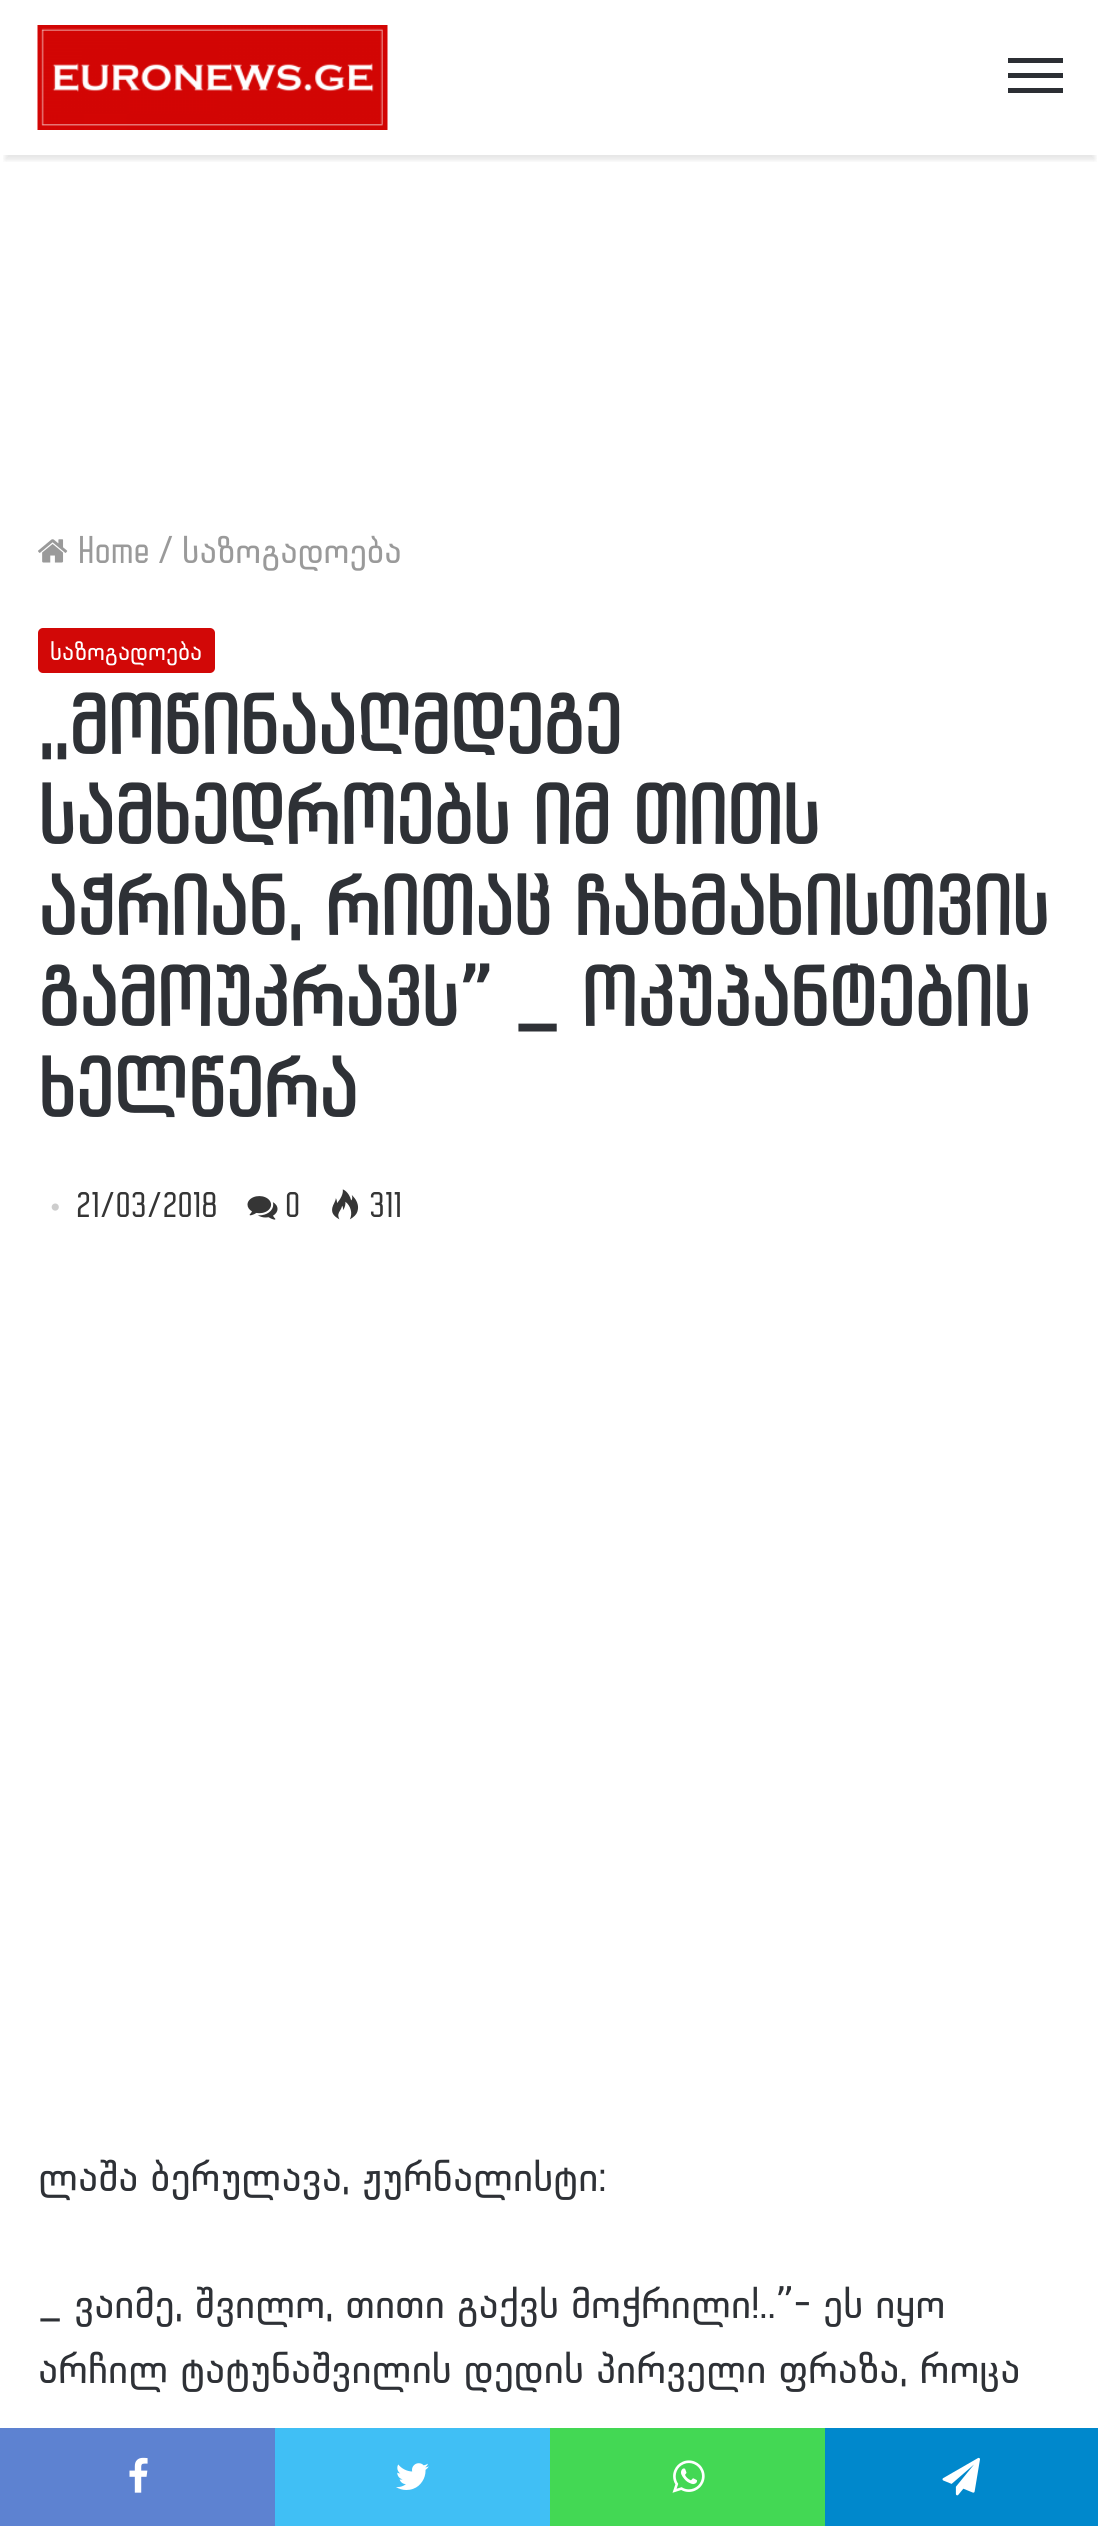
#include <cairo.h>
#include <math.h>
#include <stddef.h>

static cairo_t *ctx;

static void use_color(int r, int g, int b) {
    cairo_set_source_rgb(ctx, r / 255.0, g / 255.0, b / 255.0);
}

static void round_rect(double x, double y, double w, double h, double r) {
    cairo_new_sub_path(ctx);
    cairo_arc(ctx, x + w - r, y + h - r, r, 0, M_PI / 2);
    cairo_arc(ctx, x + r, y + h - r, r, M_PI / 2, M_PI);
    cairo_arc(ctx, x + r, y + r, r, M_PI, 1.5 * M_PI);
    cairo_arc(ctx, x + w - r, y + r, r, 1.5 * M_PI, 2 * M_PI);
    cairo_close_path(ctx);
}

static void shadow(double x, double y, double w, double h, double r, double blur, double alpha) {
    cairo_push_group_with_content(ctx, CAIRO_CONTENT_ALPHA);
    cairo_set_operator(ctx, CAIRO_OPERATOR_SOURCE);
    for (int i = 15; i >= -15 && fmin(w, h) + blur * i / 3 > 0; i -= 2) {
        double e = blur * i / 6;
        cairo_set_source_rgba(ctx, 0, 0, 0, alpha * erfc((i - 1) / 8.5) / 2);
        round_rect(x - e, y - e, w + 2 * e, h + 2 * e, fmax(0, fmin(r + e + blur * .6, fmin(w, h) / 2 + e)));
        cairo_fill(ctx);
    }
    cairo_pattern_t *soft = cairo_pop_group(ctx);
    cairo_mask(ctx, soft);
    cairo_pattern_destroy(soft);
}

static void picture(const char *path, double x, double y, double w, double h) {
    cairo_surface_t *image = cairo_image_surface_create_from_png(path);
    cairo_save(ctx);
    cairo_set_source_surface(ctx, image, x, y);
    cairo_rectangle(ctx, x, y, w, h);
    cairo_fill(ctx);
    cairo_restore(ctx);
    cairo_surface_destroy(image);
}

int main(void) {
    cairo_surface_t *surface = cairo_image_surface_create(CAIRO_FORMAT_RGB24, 1098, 2526);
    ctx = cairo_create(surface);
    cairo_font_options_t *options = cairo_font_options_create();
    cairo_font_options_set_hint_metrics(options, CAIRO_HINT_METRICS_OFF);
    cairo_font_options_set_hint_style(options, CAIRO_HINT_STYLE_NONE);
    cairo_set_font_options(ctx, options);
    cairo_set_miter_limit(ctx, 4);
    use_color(255, 255, 255);
    cairo_paint(ctx);
    cairo_save(ctx);
    cairo_rectangle(ctx, 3, 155, 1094, 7);
    cairo_clip(ctx);
    use_color(0, 0, 0);
    shadow(5, 15, 1090, 145, 0, 2.5, 0.1);
    cairo_restore(ctx);
    picture("img1.png", 37, 25, 351, 105);
    use_color(44, 47, 52);
    cairo_rectangle(ctx, 1008, 73, 55, 5);
    cairo_fill(ctx);
    cairo_rectangle(ctx, 1008, 58, 55, 5);
    cairo_fill(ctx);
    cairo_rectangle(ctx, 1008, 88, 55, 5);
    cairo_fill(ctx);
    picture("img2.png", 38, 539, 30, 24);
    cairo_select_font_face(ctx, "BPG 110", CAIRO_FONT_SLANT_NORMAL, CAIRO_FONT_WEIGHT_NORMAL);
    cairo_set_font_size(ctx, 32.5);
    use_color(154, 154, 154);
    cairo_move_to(ctx, 78, 563);
    cairo_show_text(ctx, "Home");
    cairo_move_to(ctx, 157, 563);
    cairo_show_text(ctx, "/");
    cairo_move_to(ctx, 182, 563);
    cairo_show_text(ctx, "საზოგადოება");
    use_color(210, 8, 7);
    round_rect(38, 628, 177, 45, 5);
    cairo_fill(ctx);
    cairo_set_font_size(ctx, 22.5);
    use_color(255, 255, 255);
    cairo_move_to(ctx, 50, 660);
    cairo_show_text(ctx, "საზოგადოება");
    cairo_select_font_face(ctx, "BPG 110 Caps", CAIRO_FONT_SLANT_NORMAL, CAIRO_FONT_WEIGHT_BOLD);
    cairo_set_font_size(ctx, 70);
    use_color(46, 49, 54);
    cairo_move_to(ctx, 38, 753);
    cairo_show_text(ctx, ",,მოწინააღმდეგე");
    cairo_move_to(ctx, 38, 843);
    cairo_show_text(ctx, "სამხედროებს იმ თითს");
    cairo_move_to(ctx, 38, 934);
    cairo_show_text(ctx, "აჭრიან, რითაც ჩახმახისთვის");
    cairo_move_to(ctx, 38, 1025);
    cairo_show_text(ctx, "გამოუკრავს” _ ოკუპანტების");
    cairo_move_to(ctx, 38, 1116);
    cairo_show_text(ctx, "ხელწერა");
    cairo_select_font_face(ctx, "Liberation Serif", CAIRO_FONT_SLANT_NORMAL, CAIRO_FONT_WEIGHT_NORMAL);
    cairo_set_font_size(ctx, 30);
    use_color(205, 205, 205);
    cairo_move_to(ctx, 50, 1217);
    cairo_show_text(ctx, "•");
    cairo_select_font_face(ctx, "BPG 110", CAIRO_FONT_SLANT_NORMAL, CAIRO_FONT_WEIGHT_NORMAL);
    use_color(53, 53, 53);
    cairo_move_to(ctx, 76, 1217);
    cairo_show_text(ctx, "21/03/2018");
    picture("img3.png", 247, 1196, 31, 24);
    cairo_move_to(ctx, 285, 1217);
    cairo_show_text(ctx, "0");
    picture("img4.png", 332, 1189, 27, 31);
    cairo_move_to(ctx, 369, 1217);
    cairo_show_text(ctx, "311");
    cairo_set_font_size(ctx, 37.5);
    use_color(46, 49, 54);
    cairo_move_to(ctx, 38, 2191);
    cairo_show_text(ctx, "ლაშა ბერულავა, ჟურნალისტი:");
    cairo_move_to(ctx, 38, 2318);
    cairo_show_text(ctx, "_ ვაიმე, შვილო, თითი გაქვს მოჭრილი!..”- ეს იყო");
    cairo_move_to(ctx, 38, 2383);
    cairo_show_text(ctx, "არჩილ ტატუნაშვილის დედის პირველი ფრაზა, როცა");
    use_color(93, 130, 209);
    cairo_rectangle(ctx, 0, 2428, 275, 98);
    cairo_fill(ctx);
    picture("img5.png", 129, 2457, 19, 36);
    use_color(64, 191, 245);
    cairo_rectangle(ctx, 275, 2428, 275, 98);
    cairo_fill(ctx);
    picture("img6.png", 396, 2463, 33, 27);
    use_color(67, 216, 84);
    cairo_rectangle(ctx, 550, 2428, 275, 98);
    cairo_fill(ctx);
    picture("img7.png", 672, 2460, 33, 33);
    use_color(0, 136, 204);
    cairo_rectangle(ctx, 825, 2428, 273, 98);
    cairo_fill(ctx);
    picture("img8.png", 942, 2457, 38, 39);
    cairo_surface_write_to_png(surface, "result.png");
    cairo_font_options_destroy(options);
    cairo_destroy(ctx);
    cairo_surface_destroy(surface);
    return 0;
}
